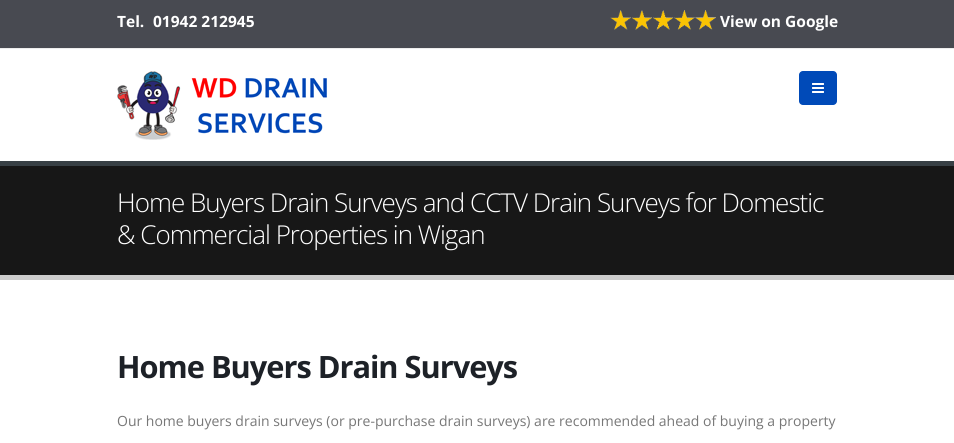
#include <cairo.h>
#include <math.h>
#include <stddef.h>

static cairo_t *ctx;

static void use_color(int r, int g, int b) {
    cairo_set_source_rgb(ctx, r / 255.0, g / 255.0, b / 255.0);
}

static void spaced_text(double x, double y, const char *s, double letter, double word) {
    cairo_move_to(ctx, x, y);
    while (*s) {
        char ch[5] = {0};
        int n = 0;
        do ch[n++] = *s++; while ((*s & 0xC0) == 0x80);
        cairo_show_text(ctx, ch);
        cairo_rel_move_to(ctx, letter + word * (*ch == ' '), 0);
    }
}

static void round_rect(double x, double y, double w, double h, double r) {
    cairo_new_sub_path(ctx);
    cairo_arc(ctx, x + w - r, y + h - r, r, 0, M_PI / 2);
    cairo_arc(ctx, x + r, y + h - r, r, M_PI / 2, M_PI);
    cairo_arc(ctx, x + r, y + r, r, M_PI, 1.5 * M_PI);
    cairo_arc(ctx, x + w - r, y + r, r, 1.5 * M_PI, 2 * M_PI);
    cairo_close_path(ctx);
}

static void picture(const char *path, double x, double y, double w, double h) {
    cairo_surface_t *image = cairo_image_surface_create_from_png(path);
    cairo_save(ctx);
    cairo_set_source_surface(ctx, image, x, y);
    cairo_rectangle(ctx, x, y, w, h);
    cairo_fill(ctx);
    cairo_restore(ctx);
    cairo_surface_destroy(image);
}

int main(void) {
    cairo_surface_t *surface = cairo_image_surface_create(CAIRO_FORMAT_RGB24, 954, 443);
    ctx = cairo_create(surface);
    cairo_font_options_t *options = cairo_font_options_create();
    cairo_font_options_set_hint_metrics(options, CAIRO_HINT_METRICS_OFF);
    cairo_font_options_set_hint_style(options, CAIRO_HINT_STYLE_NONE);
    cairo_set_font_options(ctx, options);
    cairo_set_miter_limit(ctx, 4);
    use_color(255, 255, 255);
    cairo_paint(ctx);
    use_color(72, 74, 81);
    cairo_rectangle(ctx, 0, 0, 954, 48);
    cairo_fill(ctx);
    use_color(237, 237, 237);
    cairo_rectangle(ctx, 0, 48, 954, 1);
    cairo_fill(ctx);
    cairo_select_font_face(ctx, "Open Sans", CAIRO_FONT_SLANT_NORMAL, CAIRO_FONT_WEIGHT_BOLD);
    cairo_set_font_size(ctx, 15.5);
    use_color(255, 255, 255);
    cairo_move_to(ctx, 117, 27);
    cairo_show_text(ctx, "Tel.");
    cairo_move_to(ctx, 153, 27);
    cairo_show_text(ctx, "01942 212945");
    picture("img1.png", 610, 10, 106, 20);
    cairo_move_to(ctx, 720, 27);
    cairo_show_text(ctx, "View on Google");
    picture("img2.png", 117, 71, 210, 69);
    use_color(0, 74, 184);
    round_rect(799, 71, 38, 34, 4);
    cairo_fill(ctx);
    picture("img3.png", 812, 83, 12, 10);
    use_color(23, 23, 23);
    cairo_rectangle(ctx, 0, 166, 954, 109);
    cairo_fill(ctx);
    use_color(56, 64, 69);
    cairo_rectangle(ctx, 0, 161, 954, 5);
    cairo_fill(ctx);
    use_color(204, 204, 204);
    cairo_rectangle(ctx, 0, 275, 954, 5);
    cairo_fill(ctx);
    cairo_select_font_face(ctx, "Open Sans Light", CAIRO_FONT_SLANT_NORMAL, CAIRO_FONT_WEIGHT_NORMAL);
    cairo_set_font_size(ctx, 26);
    use_color(255, 255, 255);
    spaced_text(117, 212, "Home Buyers Drain Surveys and CCTV Drain Surveys for Domestic", -1, 0);
    spaced_text(117, 244, "& Commercial Properties in Wigan", -1, 0);
    cairo_select_font_face(ctx, "Open Sans", CAIRO_FONT_SLANT_NORMAL, CAIRO_FONT_WEIGHT_BOLD);
    cairo_set_font_size(ctx, 30.75);
    use_color(29, 33, 39);
    spaced_text(117, 378, "Home Buyers Drain Surveys", -1, 0);
    cairo_select_font_face(ctx, "Open Sans", CAIRO_FONT_SLANT_NORMAL, CAIRO_FONT_WEIGHT_NORMAL);
    cairo_set_font_size(ctx, 14);
    use_color(119, 119, 119);
    cairo_move_to(ctx, 117, 426);
    cairo_show_text(ctx, "Our home buyers drain surveys (or pre-purchase drain surveys) are recommended ahead of buying a property");
    cairo_surface_write_to_png(surface, "result.png");
    cairo_font_options_destroy(options);
    cairo_destroy(ctx);
    cairo_surface_destroy(surface);
    return 0;
}
